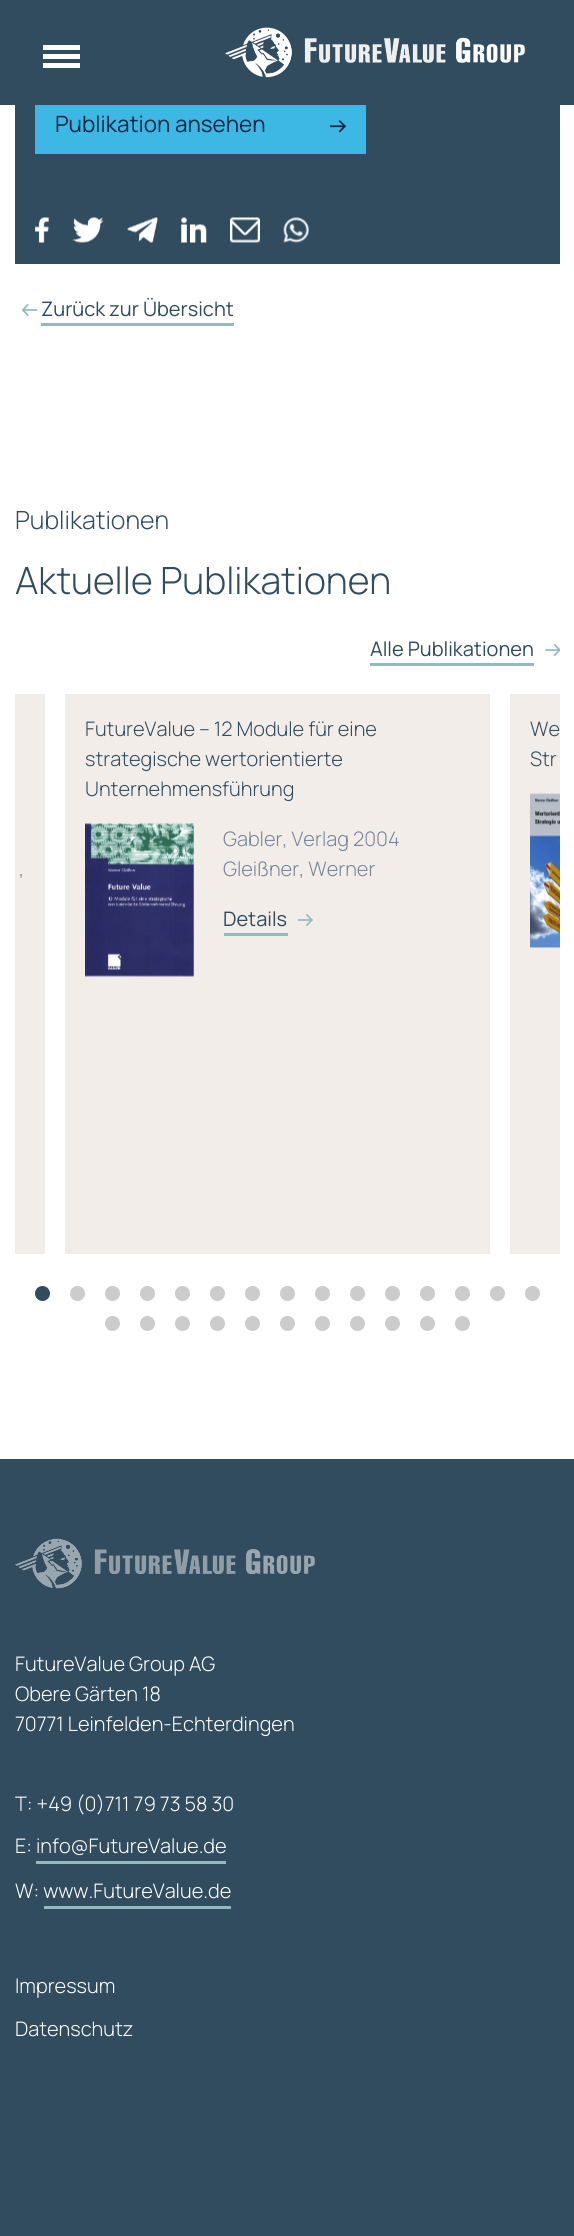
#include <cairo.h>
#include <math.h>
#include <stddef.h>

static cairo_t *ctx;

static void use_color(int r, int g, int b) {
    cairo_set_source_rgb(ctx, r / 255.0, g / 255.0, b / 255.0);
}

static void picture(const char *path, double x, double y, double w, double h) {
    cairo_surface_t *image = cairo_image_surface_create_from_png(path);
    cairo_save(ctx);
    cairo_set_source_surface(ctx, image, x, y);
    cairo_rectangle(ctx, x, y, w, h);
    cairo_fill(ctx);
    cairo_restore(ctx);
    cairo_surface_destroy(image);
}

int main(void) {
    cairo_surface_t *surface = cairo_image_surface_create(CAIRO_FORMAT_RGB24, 574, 2236);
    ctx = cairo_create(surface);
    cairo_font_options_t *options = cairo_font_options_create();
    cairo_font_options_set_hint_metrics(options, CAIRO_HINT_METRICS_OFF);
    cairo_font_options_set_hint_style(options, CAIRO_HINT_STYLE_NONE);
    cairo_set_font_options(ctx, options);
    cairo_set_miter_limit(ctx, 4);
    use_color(255, 255, 255);
    cairo_paint(ctx);
    use_color(50, 76, 95);
    cairo_rectangle(ctx, 0, 0, 574, 105);
    cairo_fill(ctx);
    use_color(255, 255, 255);
    cairo_rectangle(ctx, 43, 45, 37, 5);
    cairo_fill(ctx);
    cairo_rectangle(ctx, 43, 54, 37, 5);
    cairo_fill(ctx);
    cairo_rectangle(ctx, 43, 63, 37, 5);
    cairo_fill(ctx);
    picture("img1.png", 225, 27, 300, 51);
    use_color(50, 76, 95);
    cairo_rectangle(ctx, 15, 105, 545, 159);
    cairo_fill(ctx);
    use_color(61, 183, 228);
    cairo_rectangle(ctx, 35, 105, 331, 49);
    cairo_fill(ctx);
    cairo_select_font_face(ctx, "Manrope ExtraLight", CAIRO_FONT_SLANT_NORMAL, CAIRO_FONT_WEIGHT_NORMAL);
    cairo_set_font_size(ctx, 22.5);
    use_color(8, 40, 70);
    cairo_move_to(ctx, 55, 132);
    cairo_show_text(ctx, "Publikation ansehen");
    picture("img2.png", 330, 120, 16, 13);
    picture("img3.png", 35, 217, 14, 26);
    picture("img4.png", 72, 217, 32, 26);
    picture("img5.png", 127, 217, 31, 26);
    picture("img6.png", 181, 217, 26, 26);
    picture("img7.png", 230, 217, 30, 26);
    picture("img8.png", 283, 217, 26, 26);
    picture("img9.png", 21, 304, 17, 12);
    cairo_set_font_size(ctx, 20);
    use_color(50, 76, 95);
    cairo_move_to(ctx, 41, 316);
    cairo_show_text(ctx, "Zurück zur Übersicht");
    use_color(148, 186, 192);
    cairo_rectangle(ctx, 41, 323, 193, 3);
    cairo_fill(ctx);
    cairo_select_font_face(ctx, "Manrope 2 ExtraLight", CAIRO_FONT_SLANT_NORMAL, CAIRO_FONT_WEIGHT_NORMAL);
    cairo_set_font_size(ctx, 25);
    use_color(50, 76, 95);
    cairo_move_to(ctx, 15, 529);
    cairo_show_text(ctx, "Publikationen");
    cairo_set_font_size(ctx, 37.5);
    cairo_move_to(ctx, 15, 594);
    cairo_show_text(ctx, "Aktuelle Publikationen");
    cairo_select_font_face(ctx, "Manrope ExtraLight", CAIRO_FONT_SLANT_NORMAL, CAIRO_FONT_WEIGHT_NORMAL);
    cairo_set_font_size(ctx, 20);
    cairo_move_to(ctx, 370, 656);
    cairo_show_text(ctx, "Alle Publikationen");
    use_color(148, 186, 192);
    cairo_rectangle(ctx, 370, 663, 164, 3);
    cairo_fill(ctx);
    picture("img10.png", 545, 644, 15, 12);
    use_color(243, 237, 233);
    cairo_rectangle(ctx, 65, 694, 425, 560);
    cairo_fill(ctx);
    cairo_select_font_face(ctx, "Manrope 2 ExtraLight", CAIRO_FONT_SLANT_NORMAL, CAIRO_FONT_WEIGHT_NORMAL);
    use_color(50, 76, 95);
    cairo_move_to(ctx, 85, 736);
    cairo_show_text(ctx, "FutureValue – 12 Module für eine");
    cairo_move_to(ctx, 85, 766);
    cairo_show_text(ctx, "strategische wertorientierte");
    cairo_move_to(ctx, 85, 796);
    cairo_show_text(ctx, "Unternehmensführung");
    picture("img11.png", 85, 823, 109, 154);
    use_color(120, 134, 154);
    cairo_move_to(ctx, 223, 846);
    cairo_show_text(ctx, "Gabler, Verlag 2004");
    cairo_move_to(ctx, 223, 876);
    cairo_show_text(ctx, "Gleißner, Werner");
    cairo_select_font_face(ctx, "Manrope ExtraLight", CAIRO_FONT_SLANT_NORMAL, CAIRO_FONT_WEIGHT_NORMAL);
    use_color(50, 76, 95);
    cairo_move_to(ctx, 223, 926);
    cairo_show_text(ctx, "Details");
    use_color(148, 186, 192);
    cairo_rectangle(ctx, 224, 933, 64, 3);
    cairo_fill(ctx);
    picture("img12.png", 298, 914, 15, 12);
    use_color(243, 237, 233);
    cairo_rectangle(ctx, 510, 694, 50, 560);
    cairo_fill(ctx);
    cairo_select_font_face(ctx, "Manrope 2 ExtraLight", CAIRO_FONT_SLANT_NORMAL, CAIRO_FONT_WEIGHT_NORMAL);
    use_color(50, 76, 95);
    cairo_move_to(ctx, 530, 736);
    cairo_show_text(ctx, "We");
    cairo_move_to(ctx, 530, 766);
    cairo_show_text(ctx, "Str");
    picture("img13.png", 530, 793, 30, 155);
    use_color(243, 237, 233);
    cairo_rectangle(ctx, 15, 694, 30, 560);
    cairo_fill(ctx);
    use_color(120, 134, 154);
    cairo_move_to(ctx, 19, 876);
    cairo_show_text(ctx, ",");
    use_color(50, 76, 95);
    cairo_new_path(ctx);
    cairo_arc(ctx, 42.5, 1293.5, 7.5, 0, 2 * M_PI);
    cairo_fill(ctx);
    use_color(204, 204, 204);
    cairo_arc(ctx, 77.5, 1293.5, 7.5, 0, 2 * M_PI);
    cairo_fill(ctx);
    cairo_arc(ctx, 112.5, 1293.5, 7.5, 0, 2 * M_PI);
    cairo_fill(ctx);
    cairo_arc(ctx, 147.5, 1293.5, 7.5, 0, 2 * M_PI);
    cairo_fill(ctx);
    cairo_arc(ctx, 182.5, 1293.5, 7.5, 0, 2 * M_PI);
    cairo_fill(ctx);
    cairo_arc(ctx, 217.5, 1293.5, 7.5, 0, 2 * M_PI);
    cairo_fill(ctx);
    cairo_arc(ctx, 252.5, 1293.5, 7.5, 0, 2 * M_PI);
    cairo_fill(ctx);
    cairo_arc(ctx, 287.5, 1293.5, 7.5, 0, 2 * M_PI);
    cairo_fill(ctx);
    cairo_arc(ctx, 322.5, 1293.5, 7.5, 0, 2 * M_PI);
    cairo_fill(ctx);
    cairo_arc(ctx, 357.5, 1293.5, 7.5, 0, 2 * M_PI);
    cairo_fill(ctx);
    cairo_arc(ctx, 392.5, 1293.5, 7.5, 0, 2 * M_PI);
    cairo_fill(ctx);
    cairo_arc(ctx, 427.5, 1293.5, 7.5, 0, 2 * M_PI);
    cairo_fill(ctx);
    cairo_arc(ctx, 462.5, 1293.5, 7.5, 0, 2 * M_PI);
    cairo_fill(ctx);
    cairo_arc(ctx, 497.5, 1293.5, 7.5, 0, 2 * M_PI);
    cairo_fill(ctx);
    cairo_arc(ctx, 532.5, 1293.5, 7.5, 0, 2 * M_PI);
    cairo_fill(ctx);
    cairo_arc(ctx, 112.5, 1323.5, 7.5, 0, 2 * M_PI);
    cairo_fill(ctx);
    cairo_arc(ctx, 147.5, 1323.5, 7.5, 0, 2 * M_PI);
    cairo_fill(ctx);
    cairo_arc(ctx, 182.5, 1323.5, 7.5, 0, 2 * M_PI);
    cairo_fill(ctx);
    cairo_arc(ctx, 217.5, 1323.5, 7.5, 0, 2 * M_PI);
    cairo_fill(ctx);
    cairo_arc(ctx, 252.5, 1323.5, 7.5, 0, 2 * M_PI);
    cairo_fill(ctx);
    cairo_arc(ctx, 287.5, 1323.5, 7.5, 0, 2 * M_PI);
    cairo_fill(ctx);
    cairo_arc(ctx, 322.5, 1323.5, 7.5, 0, 2 * M_PI);
    cairo_fill(ctx);
    cairo_arc(ctx, 357.5, 1323.5, 7.5, 0, 2 * M_PI);
    cairo_fill(ctx);
    cairo_arc(ctx, 392.5, 1323.5, 7.5, 0, 2 * M_PI);
    cairo_fill(ctx);
    cairo_arc(ctx, 427.5, 1323.5, 7.5, 0, 2 * M_PI);
    cairo_fill(ctx);
    cairo_arc(ctx, 462.5, 1323.5, 7.5, 0, 2 * M_PI);
    cairo_fill(ctx);
    use_color(50, 76, 95);
    cairo_rectangle(ctx, 0, 1459, 574, 777);
    cairo_fill(ctx);
    picture("img14.png", 15, 1538, 300, 51);
    use_color(255, 255, 255);
    cairo_move_to(ctx, 15, 1671);
    cairo_show_text(ctx, "FutureValue Group AG");
    cairo_move_to(ctx, 15, 1701);
    cairo_show_text(ctx, "Obere Gärten 18");
    cairo_move_to(ctx, 15, 1731);
    cairo_show_text(ctx, "70771 Leinfelden-Echterdingen");
    cairo_move_to(ctx, 15, 1811);
    cairo_show_text(ctx, "T: +49 (0)711 79 73 58 30");
    cairo_move_to(ctx, 15, 1853);
    cairo_show_text(ctx, "E: info@FutureValue.de");
    use_color(148, 186, 192);
    cairo_rectangle(ctx, 36, 1861, 190, 3);
    cairo_fill(ctx);
    use_color(255, 255, 255);
    cairo_move_to(ctx, 15, 1898);
    cairo_show_text(ctx, "W: www.FutureValue.de");
    use_color(148, 186, 192);
    cairo_rectangle(ctx, 44, 1906, 187, 3);
    cairo_fill(ctx);
    use_color(255, 255, 255);
    cairo_move_to(ctx, 15, 1993);
    cairo_show_text(ctx, "Impressum");
    cairo_move_to(ctx, 15, 2036);
    cairo_show_text(ctx, "Datenschutz");
    cairo_surface_write_to_png(surface, "result.png");
    cairo_font_options_destroy(options);
    cairo_destroy(ctx);
    cairo_surface_destroy(surface);
    return 0;
}
